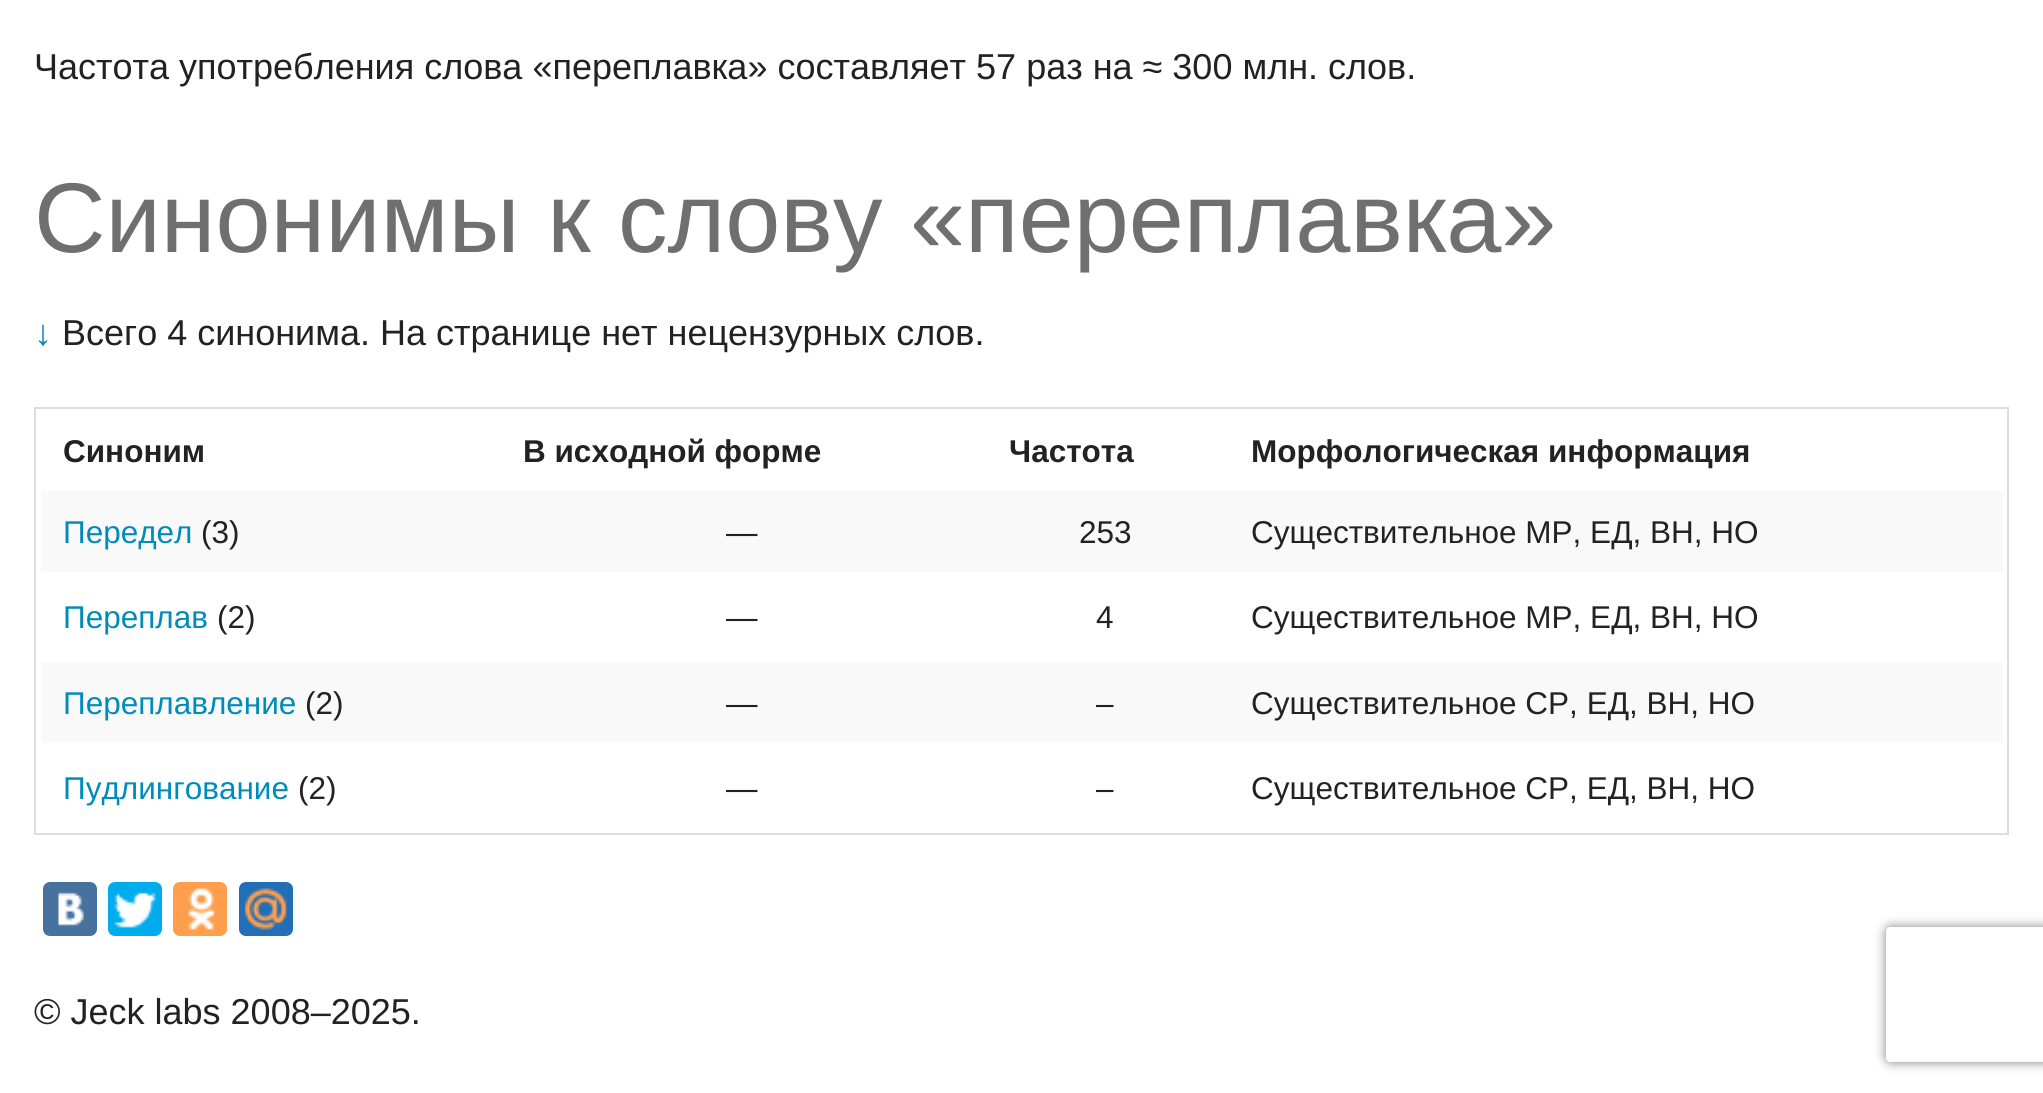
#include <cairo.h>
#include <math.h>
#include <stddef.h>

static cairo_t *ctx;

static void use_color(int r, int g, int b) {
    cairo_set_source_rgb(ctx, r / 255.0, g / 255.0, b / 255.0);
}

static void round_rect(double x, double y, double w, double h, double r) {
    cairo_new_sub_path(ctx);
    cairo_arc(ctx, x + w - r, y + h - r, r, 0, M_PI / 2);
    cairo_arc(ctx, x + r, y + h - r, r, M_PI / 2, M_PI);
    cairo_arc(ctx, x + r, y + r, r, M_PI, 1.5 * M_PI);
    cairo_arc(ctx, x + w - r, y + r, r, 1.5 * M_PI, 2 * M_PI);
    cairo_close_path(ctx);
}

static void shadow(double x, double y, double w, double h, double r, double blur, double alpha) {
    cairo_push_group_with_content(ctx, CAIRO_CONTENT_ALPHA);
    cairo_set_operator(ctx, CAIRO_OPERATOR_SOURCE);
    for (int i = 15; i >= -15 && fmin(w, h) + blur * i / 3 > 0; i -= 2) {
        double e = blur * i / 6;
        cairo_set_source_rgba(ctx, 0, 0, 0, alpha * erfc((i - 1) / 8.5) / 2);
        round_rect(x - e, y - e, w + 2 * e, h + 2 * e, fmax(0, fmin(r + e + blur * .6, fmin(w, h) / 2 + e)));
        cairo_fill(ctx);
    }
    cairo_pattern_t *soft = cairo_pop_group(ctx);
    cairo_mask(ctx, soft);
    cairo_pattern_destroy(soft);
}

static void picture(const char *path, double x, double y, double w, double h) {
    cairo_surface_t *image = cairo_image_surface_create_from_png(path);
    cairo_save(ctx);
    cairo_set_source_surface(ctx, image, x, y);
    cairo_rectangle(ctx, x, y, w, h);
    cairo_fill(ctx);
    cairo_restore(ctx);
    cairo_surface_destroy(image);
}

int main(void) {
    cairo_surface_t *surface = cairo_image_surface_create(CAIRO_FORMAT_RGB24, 2043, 1093);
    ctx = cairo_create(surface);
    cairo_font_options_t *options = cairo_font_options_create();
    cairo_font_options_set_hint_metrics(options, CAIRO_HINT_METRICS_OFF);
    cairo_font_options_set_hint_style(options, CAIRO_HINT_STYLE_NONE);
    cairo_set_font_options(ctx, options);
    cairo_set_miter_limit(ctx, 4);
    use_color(255, 255, 255);
    cairo_paint(ctx);
    cairo_select_font_face(ctx, "Liberation Sans", CAIRO_FONT_SLANT_NORMAL, CAIRO_FONT_WEIGHT_NORMAL);
    cairo_set_font_size(ctx, 36);
    use_color(34, 34, 34);
    cairo_move_to(ctx, 34, 79);
    cairo_show_text(ctx, "Частота употребления слова «переплавка» составляет 57 раз на ≈ 300 млн. слов.");
    cairo_set_font_size(ctx, 99);
    use_color(111, 111, 111);
    cairo_move_to(ctx, 34, 252);
    cairo_show_text(ctx, "Синонимы к слову «переплавка»");
    cairo_set_font_size(ctx, 36);
    use_color(0, 140, 186);
    cairo_move_to(ctx, 34, 345);
    cairo_show_text(ctx, "↓");
    use_color(34, 34, 34);
    cairo_move_to(ctx, 62, 345);
    cairo_show_text(ctx, "Всего 4 синонима. На странице нет нецензурных слов.");
    cairo_rectangle(ctx, 35, 408, 1973, 426);
    use_color(221, 221, 221);
    cairo_stroke(ctx);
    cairo_select_font_face(ctx, "Liberation Sans", CAIRO_FONT_SLANT_NORMAL, CAIRO_FONT_WEIGHT_BOLD);
    cairo_set_font_size(ctx, 31.5);
    use_color(34, 34, 34);
    cairo_move_to(ctx, 63, 462);
    cairo_show_text(ctx, "Синоним");
    cairo_move_to(ctx, 523, 462);
    cairo_show_text(ctx, "В исходной форме");
    cairo_move_to(ctx, 1009, 462);
    cairo_show_text(ctx, "Частота");
    cairo_move_to(ctx, 1251, 462);
    cairo_show_text(ctx, "Морфологическая информация");
    use_color(249, 249, 249);
    cairo_rectangle(ctx, 41, 491, 1962, 81);
    cairo_fill(ctx);
    cairo_select_font_face(ctx, "Liberation Sans", CAIRO_FONT_SLANT_NORMAL, CAIRO_FONT_WEIGHT_NORMAL);
    use_color(0, 140, 186);
    cairo_move_to(ctx, 63, 543);
    cairo_show_text(ctx, "Передел");
    use_color(34, 34, 34);
    cairo_move_to(ctx, 201, 543);
    cairo_show_text(ctx, "(3)");
    cairo_move_to(ctx, 726, 543);
    cairo_show_text(ctx, "—");
    cairo_move_to(ctx, 1079, 543);
    cairo_show_text(ctx, "253");
    cairo_move_to(ctx, 1251, 543);
    cairo_show_text(ctx, "Существительное МР, ЕД, ВН, НО");
    use_color(0, 140, 186);
    cairo_move_to(ctx, 63, 628);
    cairo_show_text(ctx, "Переплав");
    use_color(34, 34, 34);
    cairo_move_to(ctx, 217, 628);
    cairo_show_text(ctx, "(2)");
    cairo_move_to(ctx, 726, 628);
    cairo_show_text(ctx, "—");
    cairo_move_to(ctx, 1096, 628);
    cairo_show_text(ctx, "4");
    cairo_move_to(ctx, 1251, 628);
    cairo_show_text(ctx, "Существительное МР, ЕД, ВН, НО");
    use_color(249, 249, 249);
    cairo_rectangle(ctx, 41, 662, 1962, 81);
    cairo_fill(ctx);
    use_color(0, 140, 186);
    cairo_move_to(ctx, 63, 714);
    cairo_show_text(ctx, "Переплавление");
    use_color(34, 34, 34);
    cairo_move_to(ctx, 305, 714);
    cairo_show_text(ctx, "(2)");
    cairo_move_to(ctx, 726, 714);
    cairo_show_text(ctx, "—");
    cairo_move_to(ctx, 1096, 714);
    cairo_show_text(ctx, "–");
    cairo_move_to(ctx, 1251, 714);
    cairo_show_text(ctx, "Существительное СР, ЕД, ВН, НО");
    use_color(0, 140, 186);
    cairo_move_to(ctx, 63, 799);
    cairo_show_text(ctx, "Пудлингование");
    use_color(34, 34, 34);
    cairo_move_to(ctx, 298, 799);
    cairo_show_text(ctx, "(2)");
    cairo_move_to(ctx, 726, 799);
    cairo_show_text(ctx, "—");
    cairo_move_to(ctx, 1096, 799);
    cairo_show_text(ctx, "–");
    cairo_move_to(ctx, 1251, 799);
    cairo_show_text(ctx, "Существительное СР, ЕД, ВН, НО");
    use_color(72, 114, 158);
    round_rect(43, 882, 54, 54, 7);
    cairo_fill(ctx);
    picture("img1.png", 58, 892, 26, 34);
    use_color(0, 172, 237);
    round_rect(108, 882, 54, 54, 7);
    cairo_fill(ctx);
    picture("img2.png", 114, 892, 42, 36);
    use_color(255, 159, 77);
    round_rect(173, 882, 54, 54, 7);
    cairo_fill(ctx);
    picture("img3.png", 188, 888, 27, 42);
    use_color(34, 110, 183);
    round_rect(239, 882, 54, 54, 7);
    cairo_fill(ctx);
    picture("img4.png", 244, 888, 43, 42);
    cairo_set_font_size(ctx, 36);
    use_color(34, 34, 34);
    cairo_move_to(ctx, 34, 1024);
    cairo_show_text(ctx, "© Jeck labs 2008–2025.");
    cairo_save(ctx);
    cairo_set_fill_rule(ctx, CAIRO_FILL_RULE_EVEN_ODD);
    cairo_new_path(ctx);
    cairo_move_to(ctx, 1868, 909);
    cairo_line_to(ctx, 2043, 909);
    cairo_line_to(ctx, 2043, 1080);
    cairo_line_to(ctx, 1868, 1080);
    cairo_close_path(ctx);
    cairo_move_to(ctx, 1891, 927);
    cairo_line_to(ctx, 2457, 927);
    cairo_curve_to(ctx, 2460, 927, 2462, 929, 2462, 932);
    cairo_line_to(ctx, 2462, 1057);
    cairo_curve_to(ctx, 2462, 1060, 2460, 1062, 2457, 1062);
    cairo_line_to(ctx, 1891, 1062);
    cairo_curve_to(ctx, 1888, 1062, 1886, 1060, 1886, 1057);
    cairo_line_to(ctx, 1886, 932);
    cairo_curve_to(ctx, 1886, 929, 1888, 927, 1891, 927);
    cairo_close_path(ctx);
    cairo_clip(ctx);
    use_color(128, 128, 128);
    shadow(1886, 927, 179, 135, 5, 5.5, 1);
    cairo_restore(ctx);
    cairo_surface_write_to_png(surface, "result.png");
    cairo_font_options_destroy(options);
    cairo_destroy(ctx);
    cairo_surface_destroy(surface);
    return 0;
}
